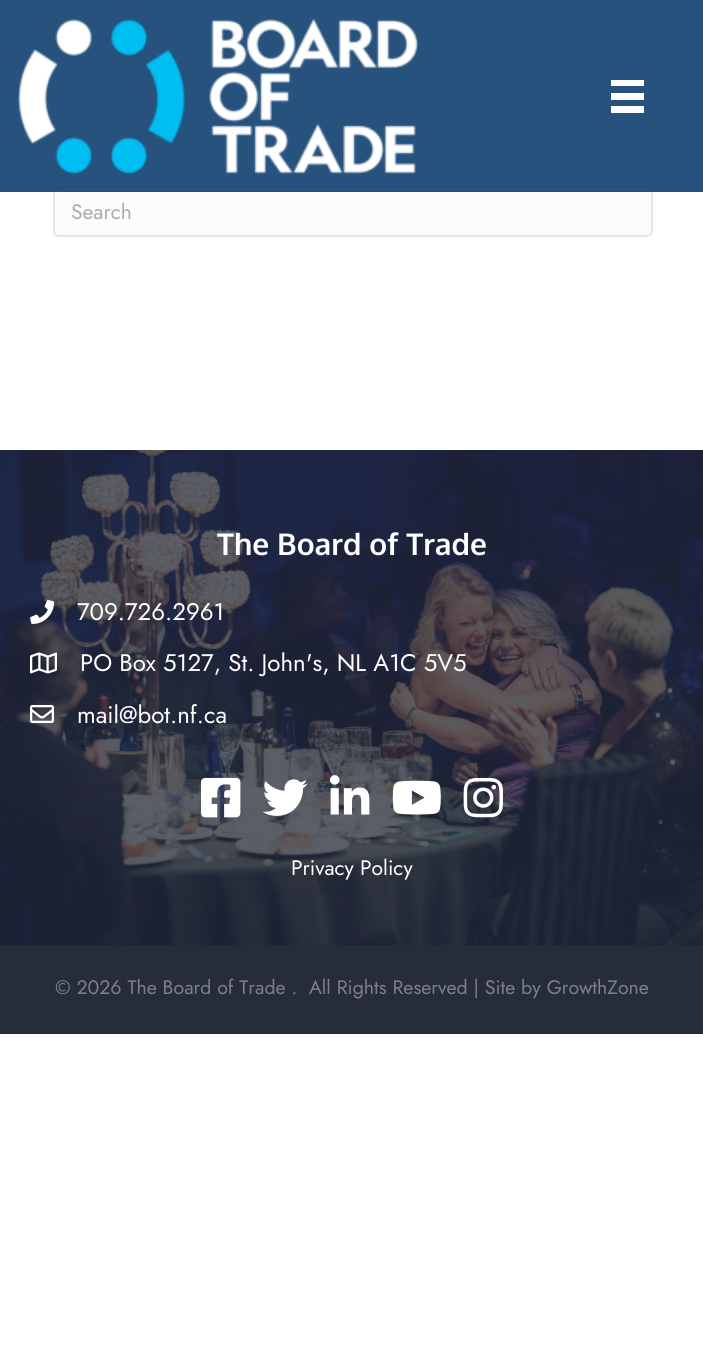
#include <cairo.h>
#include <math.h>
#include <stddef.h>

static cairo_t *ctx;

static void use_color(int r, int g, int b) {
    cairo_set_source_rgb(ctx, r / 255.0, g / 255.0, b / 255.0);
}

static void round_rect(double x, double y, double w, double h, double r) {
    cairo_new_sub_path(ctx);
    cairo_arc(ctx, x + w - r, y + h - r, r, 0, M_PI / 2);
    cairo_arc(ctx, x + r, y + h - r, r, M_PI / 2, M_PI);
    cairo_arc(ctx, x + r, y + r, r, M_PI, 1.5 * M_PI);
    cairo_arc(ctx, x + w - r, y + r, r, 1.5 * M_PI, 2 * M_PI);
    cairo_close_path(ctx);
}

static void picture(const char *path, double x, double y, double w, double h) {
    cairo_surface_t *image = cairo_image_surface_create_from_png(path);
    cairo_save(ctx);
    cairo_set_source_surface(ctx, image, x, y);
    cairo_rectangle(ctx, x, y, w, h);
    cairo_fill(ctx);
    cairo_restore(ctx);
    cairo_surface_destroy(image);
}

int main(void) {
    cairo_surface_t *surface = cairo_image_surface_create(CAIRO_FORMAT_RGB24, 703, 1346);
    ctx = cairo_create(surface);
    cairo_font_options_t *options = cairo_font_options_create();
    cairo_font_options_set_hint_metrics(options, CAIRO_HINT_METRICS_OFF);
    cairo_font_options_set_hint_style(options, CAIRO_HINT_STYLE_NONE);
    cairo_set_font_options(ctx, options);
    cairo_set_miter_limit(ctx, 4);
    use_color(255, 255, 255);
    cairo_paint(ctx);
    use_color(252, 252, 252);
    round_rect(54, 187, 598, 49, 5);
    cairo_fill_preserve(ctx);
    use_color(230, 230, 230);
    cairo_stroke(ctx);
    cairo_set_source_rgba(ctx, 0.004, 0.204, 0.4, 0.85);
    cairo_rectangle(ctx, 0, 0, 703, 192);
    cairo_fill(ctx);
    picture("img1.png", 17, 18, 401, 157);
    use_color(255, 255, 255);
    cairo_rectangle(ctx, 611, 80, 33, 6);
    cairo_fill(ctx);
    cairo_rectangle(ctx, 611, 93, 33, 7);
    cairo_fill(ctx);
    cairo_rectangle(ctx, 611, 106, 33, 7);
    cairo_fill(ctx);
    cairo_select_font_face(ctx, "Jost", CAIRO_FONT_SLANT_NORMAL, CAIRO_FONT_WEIGHT_NORMAL);
    cairo_set_font_size(ctx, 21);
    use_color(172, 172, 172);
    cairo_move_to(ctx, 71, 219);
    cairo_show_text(ctx, "Search");
    picture("img2.png", 0, 450, 703, 495);
    cairo_select_font_face(ctx, "Oxygen", CAIRO_FONT_SLANT_NORMAL, CAIRO_FONT_WEIGHT_BOLD);
    cairo_set_font_size(ctx, 30);
    use_color(255, 255, 255);
    cairo_move_to(ctx, 217, 555);
    cairo_show_text(ctx, "The Board of Trade");
    picture("img3.png", 30, 600, 25, 24);
    cairo_select_font_face(ctx, "Jost", CAIRO_FONT_SLANT_NORMAL, CAIRO_FONT_WEIGHT_NORMAL);
    cairo_set_font_size(ctx, 24);
    cairo_move_to(ctx, 77, 620);
    cairo_show_text(ctx, "709.726.2961");
    picture("img4.png", 30, 652, 27, 22);
    cairo_move_to(ctx, 80, 671);
    cairo_show_text(ctx, "PO Box 5127, St. John's, NL A1C 5V5");
    picture("img5.png", 30, 705, 24, 18);
    cairo_move_to(ctx, 77, 723);
    cairo_show_text(ctx, "mail@bot.nf.ca");
    picture("img6.png", 201, 777, 40, 41);
    picture("img7.png", 262, 779, 46, 37);
    picture("img8.png", 330, 775, 40, 40);
    picture("img9.png", 392, 780, 49, 35);
    picture("img10.png", 463, 777, 40, 41);
    cairo_set_font_size(ctx, 21);
    cairo_move_to(ctx, 291, 875);
    cairo_show_text(ctx, "Privacy Policy");
    use_color(38, 44, 56);
    cairo_rectangle(ctx, 0, 945, 703, 89);
    cairo_fill(ctx);
    cairo_set_font_size(ctx, 19.5);
    use_color(125, 128, 136);
    cairo_move_to(ctx, 55, 994);
    cairo_show_text(ctx, "© 2026 The Board of Trade .");
    cairo_move_to(ctx, 309, 994);
    cairo_show_text(ctx, "All Rights Reserved | Site by GrowthZone");
    cairo_surface_write_to_png(surface, "result.png");
    cairo_font_options_destroy(options);
    cairo_destroy(ctx);
    cairo_surface_destroy(surface);
    return 0;
}
